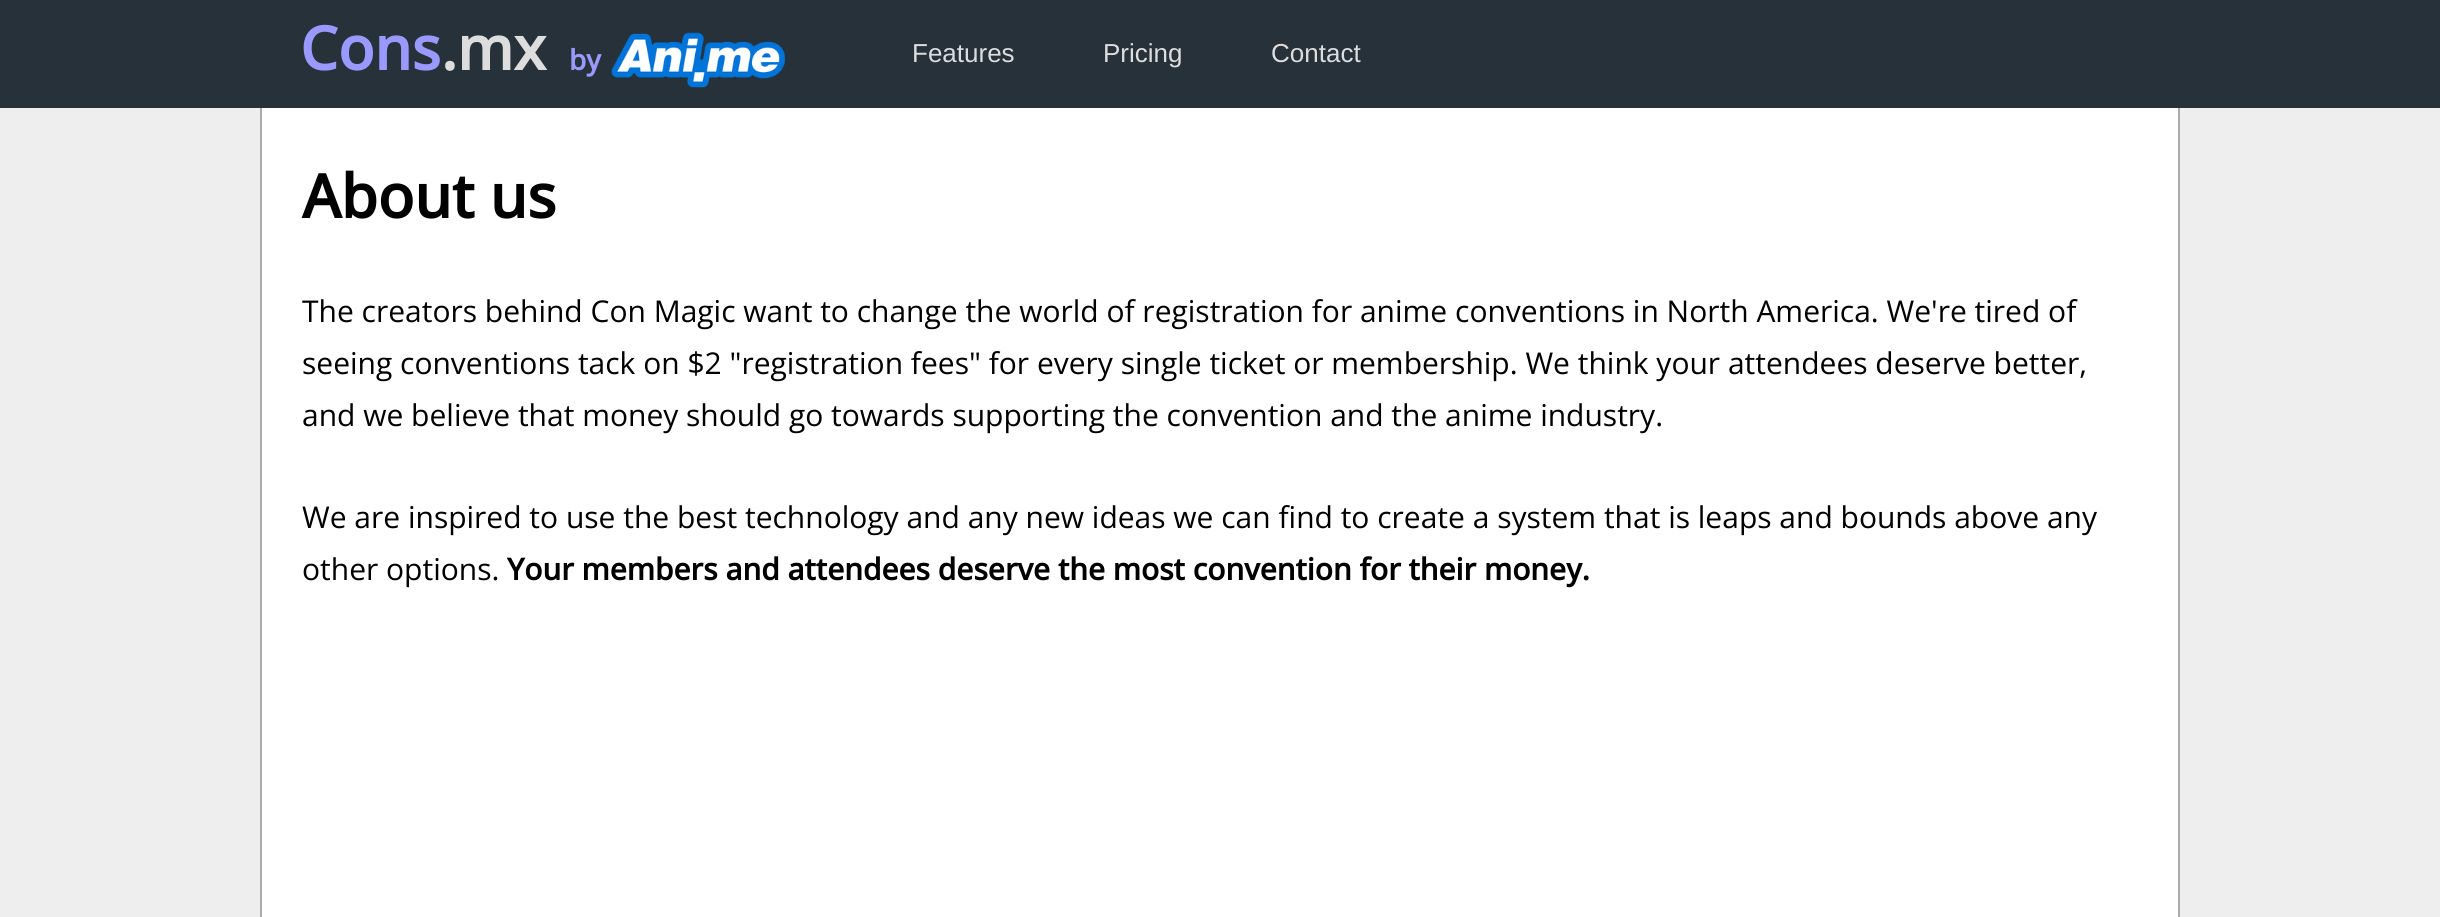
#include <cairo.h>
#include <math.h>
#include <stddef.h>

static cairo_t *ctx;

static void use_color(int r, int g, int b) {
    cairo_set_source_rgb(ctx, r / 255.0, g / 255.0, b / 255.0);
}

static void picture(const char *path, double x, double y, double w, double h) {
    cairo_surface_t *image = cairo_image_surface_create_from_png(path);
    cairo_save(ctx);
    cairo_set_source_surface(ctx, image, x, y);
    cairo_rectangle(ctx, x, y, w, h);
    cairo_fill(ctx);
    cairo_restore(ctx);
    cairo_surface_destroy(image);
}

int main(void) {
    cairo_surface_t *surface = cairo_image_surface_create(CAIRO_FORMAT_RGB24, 2440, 917);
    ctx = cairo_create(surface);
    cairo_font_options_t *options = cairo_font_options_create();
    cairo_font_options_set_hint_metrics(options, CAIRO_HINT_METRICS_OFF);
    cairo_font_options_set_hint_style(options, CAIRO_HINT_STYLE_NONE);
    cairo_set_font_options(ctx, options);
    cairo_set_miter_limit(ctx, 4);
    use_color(38, 49, 57);
    cairo_paint(ctx);
    cairo_select_font_face(ctx, "Open Sans", CAIRO_FONT_SLANT_NORMAL, CAIRO_FONT_WEIGHT_BOLD);
    cairo_set_font_size(ctx, 60);
    use_color(153, 153, 255);
    cairo_move_to(ctx, 300, 70);
    cairo_show_text(ctx, "Cons");
    use_color(221, 221, 221);
    cairo_move_to(ctx, 441, 70);
    cairo_show_text(ctx, ".mx");
    cairo_set_font_size(ctx, 28);
    use_color(153, 153, 255);
    cairo_move_to(ctx, 569, 70);
    cairo_show_text(ctx, "by");
    picture("img1.png", 611, 32, 174, 56);
    cairo_select_font_face(ctx, "Liberation Sans", CAIRO_FONT_SLANT_NORMAL, CAIRO_FONT_WEIGHT_NORMAL);
    cairo_set_font_size(ctx, 26);
    use_color(221, 221, 221);
    cairo_move_to(ctx, 912, 62);
    cairo_show_text(ctx, "Features");
    cairo_move_to(ctx, 1103, 62);
    cairo_show_text(ctx, "Pricing");
    cairo_move_to(ctx, 1271, 62);
    cairo_show_text(ctx, "Contact");
    use_color(238, 238, 238);
    cairo_rectangle(ctx, 0, 108, 2440, 809);
    cairo_fill(ctx);
    use_color(255, 255, 255);
    cairo_rectangle(ctx, 262, 108, 1916, 809);
    cairo_fill(ctx);
    use_color(170, 170, 170);
    cairo_rectangle(ctx, 2178, 108, 2, 809);
    cairo_fill(ctx);
    cairo_rectangle(ctx, 260, 108, 2, 809);
    cairo_fill(ctx);
    cairo_select_font_face(ctx, "Open Sans", CAIRO_FONT_SLANT_NORMAL, CAIRO_FONT_WEIGHT_BOLD);
    cairo_set_font_size(ctx, 60);
    use_color(0, 0, 0);
    cairo_move_to(ctx, 302, 218);
    cairo_show_text(ctx, "About us");
    cairo_select_font_face(ctx, "Open Sans", CAIRO_FONT_SLANT_NORMAL, CAIRO_FONT_WEIGHT_NORMAL);
    cairo_set_font_size(ctx, 30);
    cairo_move_to(ctx, 302, 322);
    cairo_show_text(ctx, "The creators behind Con Magic want to change the world of registration for anime conventions in North America. We're tired of");
    cairo_move_to(ctx, 302, 374);
    cairo_show_text(ctx, "seeing conventions tack on $2 \"registration fees\" for every single ticket or membership. We think your attendees deserve better,");
    cairo_move_to(ctx, 302, 426);
    cairo_show_text(ctx, "and we believe that money should go towards supporting the convention and the anime industry.");
    cairo_move_to(ctx, 302, 528);
    cairo_show_text(ctx, "We are inspired to use the best technology and any new ideas we can find to create a system that is leaps and bounds above any");
    cairo_move_to(ctx, 302, 580);
    cairo_show_text(ctx, "other options.");
    cairo_select_font_face(ctx, "Open Sans", CAIRO_FONT_SLANT_NORMAL, CAIRO_FONT_WEIGHT_BOLD);
    cairo_move_to(ctx, 507, 580);
    cairo_show_text(ctx, "Your members and attendees deserve the most convention for their money.");
    cairo_surface_write_to_png(surface, "result.png");
    cairo_font_options_destroy(options);
    cairo_destroy(ctx);
    cairo_surface_destroy(surface);
    return 0;
}
